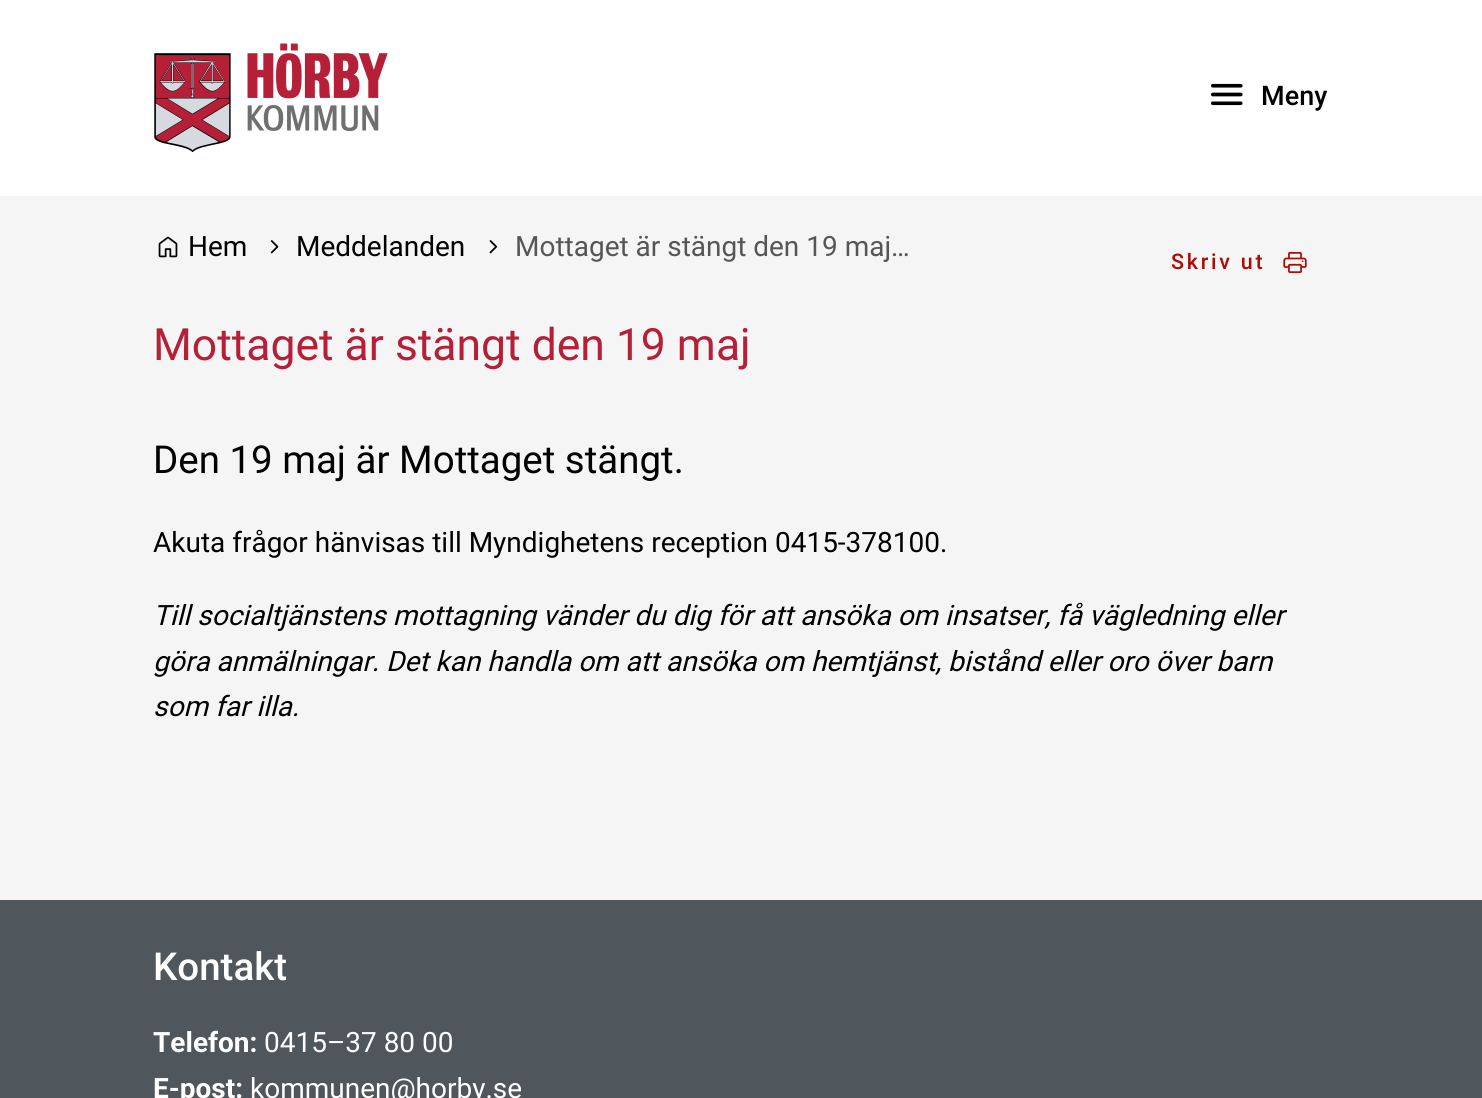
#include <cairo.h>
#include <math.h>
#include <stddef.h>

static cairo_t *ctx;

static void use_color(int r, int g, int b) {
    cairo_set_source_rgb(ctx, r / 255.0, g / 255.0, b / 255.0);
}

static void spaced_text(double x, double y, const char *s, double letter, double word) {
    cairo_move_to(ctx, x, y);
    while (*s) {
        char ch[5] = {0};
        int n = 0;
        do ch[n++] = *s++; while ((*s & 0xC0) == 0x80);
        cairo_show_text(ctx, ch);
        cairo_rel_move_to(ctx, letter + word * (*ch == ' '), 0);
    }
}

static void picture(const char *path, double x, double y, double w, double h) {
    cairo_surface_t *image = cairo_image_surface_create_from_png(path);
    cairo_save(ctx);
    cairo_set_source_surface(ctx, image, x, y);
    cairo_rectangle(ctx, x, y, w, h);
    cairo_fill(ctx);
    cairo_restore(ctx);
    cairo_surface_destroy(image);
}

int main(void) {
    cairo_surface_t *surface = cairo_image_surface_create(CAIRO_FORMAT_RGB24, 1482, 1098);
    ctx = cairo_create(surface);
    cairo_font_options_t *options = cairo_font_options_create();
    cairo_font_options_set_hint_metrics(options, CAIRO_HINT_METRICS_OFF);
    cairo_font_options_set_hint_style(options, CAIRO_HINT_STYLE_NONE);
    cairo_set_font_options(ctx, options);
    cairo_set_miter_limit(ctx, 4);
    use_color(245, 245, 245);
    cairo_paint(ctx);
    use_color(255, 255, 255);
    cairo_rectangle(ctx, 0, 0, 1482, 196);
    cairo_fill(ctx);
    picture("img1.png", 154, 43, 234, 110);
    picture("img2.png", 1211, 83, 32, 23);
    cairo_select_font_face(ctx, "Roboto Medium", CAIRO_FONT_SLANT_NORMAL, CAIRO_FONT_WEIGHT_NORMAL);
    cairo_set_font_size(ctx, 27);
    use_color(0, 0, 0);
    cairo_move_to(ctx, 1261, 105);
    cairo_show_text(ctx, "Meny");
    picture("img3.png", 158, 236, 20, 22);
    cairo_select_font_face(ctx, "Roboto", CAIRO_FONT_SLANT_NORMAL, CAIRO_FONT_WEIGHT_NORMAL);
    cairo_set_font_size(ctx, 28);
    cairo_move_to(ctx, 188, 256);
    cairo_show_text(ctx, "Hem");
    picture("img4.png", 270, 240, 9, 14);
    cairo_move_to(ctx, 296, 256);
    cairo_show_text(ctx, "Meddelanden");
    picture("img5.png", 489, 240, 9, 14);
    use_color(86, 86, 86);
    cairo_move_to(ctx, 515, 256);
    cairo_show_text(ctx, "Mottaget är stängt den 19 maj…");
    cairo_select_font_face(ctx, "Roboto Medium", CAIRO_FONT_SLANT_NORMAL, CAIRO_FONT_WEIGHT_NORMAL);
    cairo_set_font_size(ctx, 21.5);
    use_color(174, 11, 5);
    spaced_text(1171, 269, "Skriv ut", 2.75, 0);
    picture("img6.png", 1283, 252, 24, 21);
    cairo_select_font_face(ctx, "Roboto", CAIRO_FONT_SLANT_NORMAL, CAIRO_FONT_WEIGHT_NORMAL);
    cairo_set_font_size(ctx, 44.5);
    use_color(181, 32, 56);
    cairo_move_to(ctx, 153, 360);
    cairo_show_text(ctx, "Mottaget är stängt den 19 maj");
    cairo_set_font_size(ctx, 38.5);
    use_color(0, 0, 0);
    cairo_move_to(ctx, 153, 473);
    cairo_show_text(ctx, "Den 19 maj är Mottaget stängt.");
    cairo_set_font_size(ctx, 28);
    cairo_move_to(ctx, 153, 552);
    cairo_show_text(ctx, "Akuta frågor hänvisas till Myndighetens reception 0415-378100.");
    cairo_select_font_face(ctx, "Roboto", CAIRO_FONT_SLANT_ITALIC, CAIRO_FONT_WEIGHT_NORMAL);
    cairo_move_to(ctx, 153, 625);
    cairo_show_text(ctx, "Till socialtjänstens mottagning vänder du dig för att ansöka om insatser, få vägledning eller");
    cairo_move_to(ctx, 153, 671);
    cairo_show_text(ctx, "göra anmälningar. Det kan handla om att ansöka om hemtjänst, bistånd eller oro över barn");
    cairo_move_to(ctx, 153, 716);
    cairo_show_text(ctx, "som far illa.");
    use_color(79, 87, 92);
    cairo_rectangle(ctx, 0, 900, 1482, 198);
    cairo_fill(ctx);
    cairo_select_font_face(ctx, "Roboto Medium", CAIRO_FONT_SLANT_NORMAL, CAIRO_FONT_WEIGHT_NORMAL);
    cairo_set_font_size(ctx, 38.5);
    use_color(255, 255, 255);
    cairo_move_to(ctx, 153, 980);
    cairo_show_text(ctx, "Kontakt");
    cairo_select_font_face(ctx, "Roboto", CAIRO_FONT_SLANT_NORMAL, CAIRO_FONT_WEIGHT_BOLD);
    cairo_set_font_size(ctx, 28);
    cairo_move_to(ctx, 153, 1052);
    cairo_show_text(ctx, "Telefon:");
    cairo_select_font_face(ctx, "Roboto", CAIRO_FONT_SLANT_NORMAL, CAIRO_FONT_WEIGHT_NORMAL);
    cairo_move_to(ctx, 264, 1052);
    cairo_show_text(ctx, "0415–37 80 00");
    cairo_select_font_face(ctx, "Roboto", CAIRO_FONT_SLANT_NORMAL, CAIRO_FONT_WEIGHT_BOLD);
    cairo_move_to(ctx, 153, 1098);
    cairo_show_text(ctx, "E-post:");
    cairo_select_font_face(ctx, "Roboto", CAIRO_FONT_SLANT_NORMAL, CAIRO_FONT_WEIGHT_NORMAL);
    cairo_move_to(ctx, 250, 1098);
    cairo_show_text(ctx, "kommunen@horby.se");
    cairo_surface_write_to_png(surface, "result.png");
    cairo_font_options_destroy(options);
    cairo_destroy(ctx);
    cairo_surface_destroy(surface);
    return 0;
}
